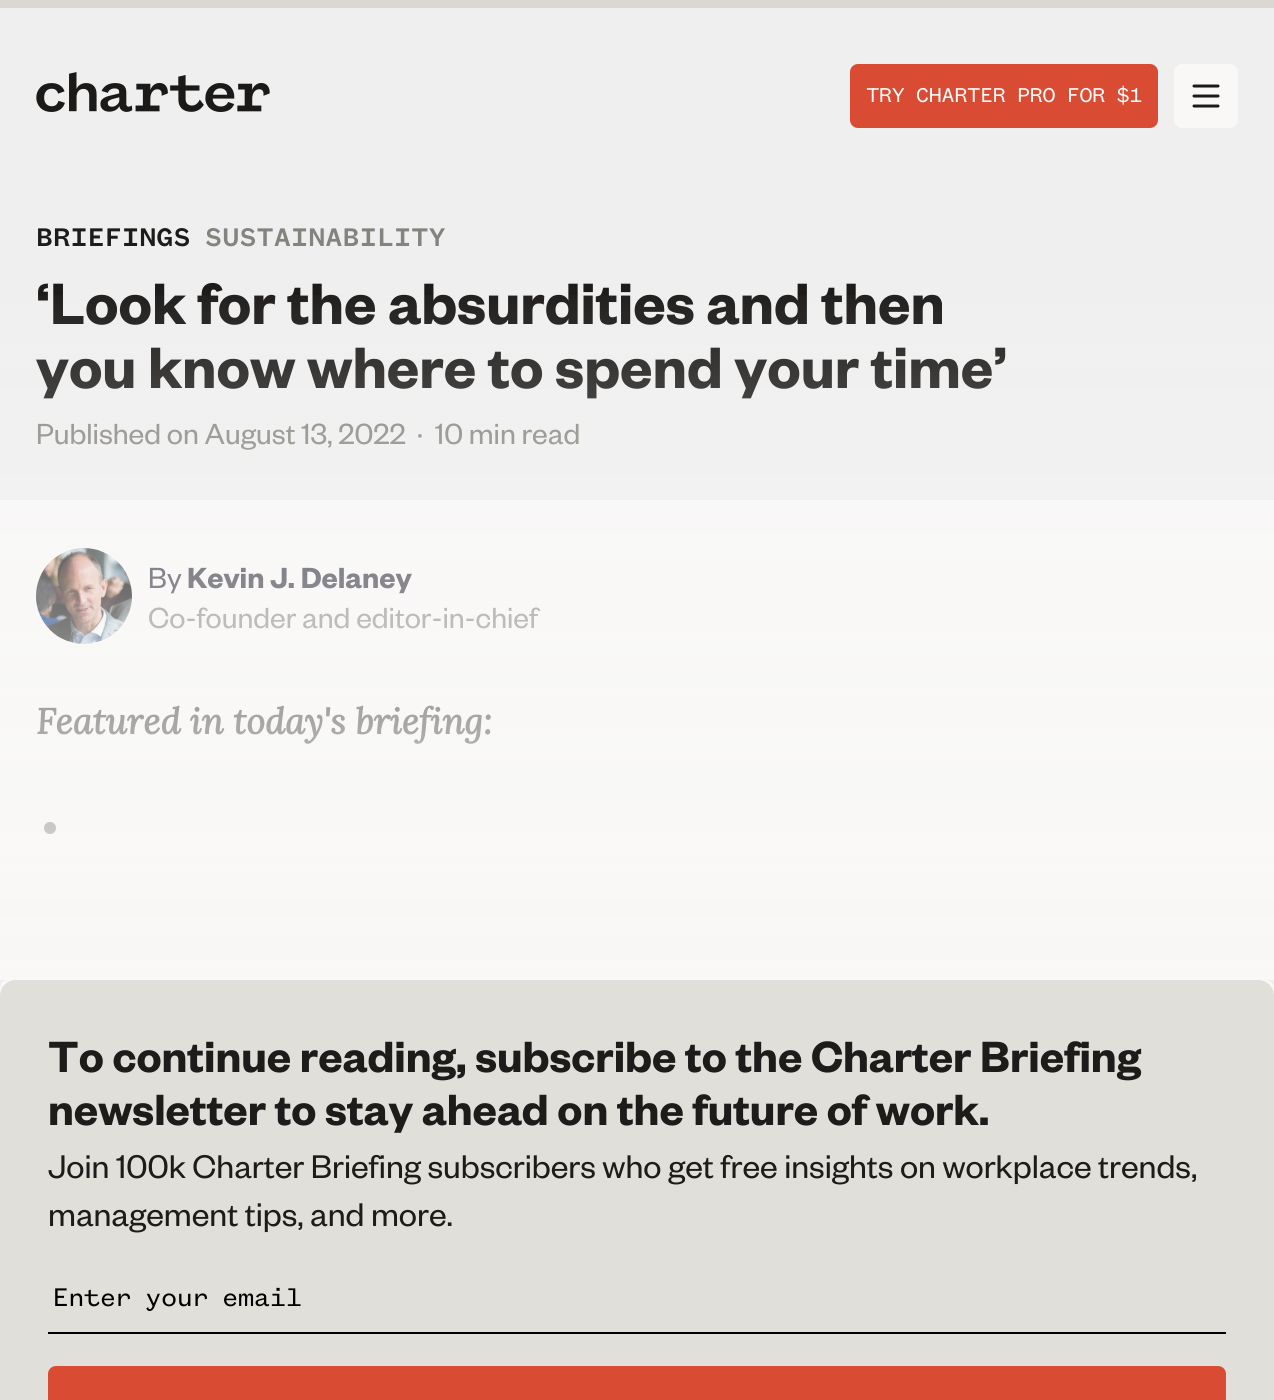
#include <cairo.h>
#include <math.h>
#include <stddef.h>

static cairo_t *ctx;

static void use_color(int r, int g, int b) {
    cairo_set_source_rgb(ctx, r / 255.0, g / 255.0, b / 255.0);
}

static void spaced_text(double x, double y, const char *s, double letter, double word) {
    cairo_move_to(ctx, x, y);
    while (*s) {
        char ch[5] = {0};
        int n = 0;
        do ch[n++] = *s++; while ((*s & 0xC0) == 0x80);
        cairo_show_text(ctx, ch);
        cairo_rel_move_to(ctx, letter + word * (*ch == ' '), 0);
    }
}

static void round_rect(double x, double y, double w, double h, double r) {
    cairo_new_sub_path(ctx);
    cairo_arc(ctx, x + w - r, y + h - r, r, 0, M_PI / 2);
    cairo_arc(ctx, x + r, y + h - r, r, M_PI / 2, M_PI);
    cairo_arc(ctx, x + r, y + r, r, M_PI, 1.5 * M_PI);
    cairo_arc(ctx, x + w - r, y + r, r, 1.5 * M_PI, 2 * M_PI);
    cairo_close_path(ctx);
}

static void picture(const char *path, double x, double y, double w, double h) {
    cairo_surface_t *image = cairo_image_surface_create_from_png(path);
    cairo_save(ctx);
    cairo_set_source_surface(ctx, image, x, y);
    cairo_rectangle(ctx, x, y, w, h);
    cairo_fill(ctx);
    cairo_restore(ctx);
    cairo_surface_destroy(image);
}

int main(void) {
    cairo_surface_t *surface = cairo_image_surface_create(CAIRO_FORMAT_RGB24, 1274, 1400);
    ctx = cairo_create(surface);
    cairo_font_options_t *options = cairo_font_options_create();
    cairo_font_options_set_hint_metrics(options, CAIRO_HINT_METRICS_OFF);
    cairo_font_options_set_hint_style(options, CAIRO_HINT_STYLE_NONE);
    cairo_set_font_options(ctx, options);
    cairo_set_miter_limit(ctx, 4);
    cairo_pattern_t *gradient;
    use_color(239, 239, 239);
    cairo_paint(ctx);
    use_color(218, 216, 211);
    cairo_rectangle(ctx, 0, 0, 1274, 8);
    cairo_fill(ctx);
    picture("img1.png", 36, 72, 234, 40);
    use_color(217, 76, 51);
    round_rect(850, 64, 308, 64, 8);
    cairo_fill(ctx);
    cairo_select_font_face(ctx, "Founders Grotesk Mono", CAIRO_FONT_SLANT_NORMAL, CAIRO_FONT_WEIGHT_NORMAL);
    cairo_set_font_size(ctx, 22);
    use_color(252, 252, 252);
    spaced_text(866, 102, "TRY CHARTER PRO FOR $1", -0.7, -1.5);
    use_color(249, 248, 247);
    round_rect(1174, 64, 64, 64, 8);
    cairo_fill(ctx);
    cairo_new_path(ctx);
    cairo_move_to(ctx, 1194, 86);
    cairo_line_to(ctx, 1218, 86);
    cairo_move_to(ctx, 1194, 96);
    cairo_line_to(ctx, 1218, 96);
    cairo_move_to(ctx, 1194, 106);
    cairo_line_to(ctx, 1218, 106);
    use_color(27, 26, 24);
    cairo_set_line_width(ctx, 3);
    cairo_set_line_cap(ctx, CAIRO_LINE_CAP_ROUND);
    cairo_stroke(ctx);
    cairo_select_font_face(ctx, "Founders Grotesk Mono Medium", CAIRO_FONT_SLANT_NORMAL, CAIRO_FONT_WEIGHT_NORMAL);
    cairo_set_font_size(ctx, 28);
    use_color(29, 28, 26);
    cairo_move_to(ctx, 36, 246);
    cairo_show_text(ctx, "BRIEFINGS");
    use_color(133, 131, 125);
    cairo_move_to(ctx, 205, 246);
    cairo_show_text(ctx, "SUSTAINABILITY");
    cairo_select_font_face(ctx, "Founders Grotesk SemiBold", CAIRO_FONT_SLANT_NORMAL, CAIRO_FONT_WEIGHT_NORMAL);
    cairo_set_font_size(ctx, 64);
    use_color(29, 28, 26);
    cairo_move_to(ctx, 36, 324);
    cairo_show_text(ctx, "‘Look for the absurdities and then");
    cairo_move_to(ctx, 36, 388);
    cairo_show_text(ctx, "you know where to spend your time’");
    cairo_select_font_face(ctx, "Founders Grotesk", CAIRO_FONT_SLANT_NORMAL, CAIRO_FONT_WEIGHT_NORMAL);
    cairo_set_font_size(ctx, 32);
    use_color(133, 131, 125);
    cairo_move_to(ctx, 36, 444);
    cairo_show_text(ctx, "Published on August 13, 2022");
    cairo_move_to(ctx, 417, 444);
    cairo_show_text(ctx, "·");
    cairo_move_to(ctx, 435, 444);
    cairo_show_text(ctx, "10 min read");
    use_color(249, 248, 247);
    cairo_rectangle(ctx, 0, 500, 1274, 400);
    cairo_fill(ctx);
    picture("img2.png", 36, 548, 96, 96);
    use_color(50, 47, 61);
    cairo_move_to(ctx, 148, 588);
    cairo_show_text(ctx, "By");
    cairo_select_font_face(ctx, "Founders Grotesk SemiBold", CAIRO_FONT_SLANT_NORMAL, CAIRO_FONT_WEIGHT_NORMAL);
    cairo_move_to(ctx, 187, 588);
    cairo_show_text(ctx, "Kevin J. Delaney");
    cairo_select_font_face(ctx, "Founders Grotesk", CAIRO_FONT_SLANT_NORMAL, CAIRO_FONT_WEIGHT_NORMAL);
    use_color(133, 131, 125);
    cairo_move_to(ctx, 148, 628);
    cairo_show_text(ctx, "Co-founder and editor-in-chief");
    cairo_select_font_face(ctx, "Lora", CAIRO_FONT_SLANT_ITALIC, CAIRO_FONT_WEIGHT_BOLD);
    cairo_set_font_size(ctx, 36);
    use_color(29, 28, 26);
    cairo_move_to(ctx, 36, 734);
    cairo_show_text(ctx, "Featured in today's briefing:");
    use_color(27, 26, 24);
    cairo_new_path(ctx);
    cairo_arc(ctx, 50, 828, 6, 0, 2 * M_PI);
    cairo_fill(ctx);
    use_color(249, 248, 247);
    round_rect(0, 980, 1274, 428, 8);
    cairo_fill(ctx);
    gradient = cairo_pattern_create_linear(637, 280, 637, 980);
    cairo_pattern_add_color_stop_rgba(gradient, 0, 0.976, 0.973, 0.969, 0);
    cairo_pattern_add_color_stop_rgba(gradient, 1, 0.976, 0.973, 0.969, 1);
    cairo_set_source(ctx, gradient);
    cairo_pattern_destroy(gradient);
    cairo_rectangle(ctx, 0, 295, 1274, 685);
    cairo_fill(ctx);
    use_color(224, 223, 217);
    round_rect(0, 980, 1274, 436, 16);
    cairo_fill(ctx);
    cairo_select_font_face(ctx, "Founders Grotesk SemiBold", CAIRO_FONT_SLANT_NORMAL, CAIRO_FONT_WEIGHT_NORMAL);
    cairo_set_font_size(ctx, 48);
    use_color(29, 28, 26);
    cairo_move_to(ctx, 48, 1072);
    cairo_show_text(ctx, "To continue reading, subscribe to the Charter Briefing");
    cairo_move_to(ctx, 48, 1125);
    cairo_show_text(ctx, "newsletter to stay ahead on the future of work.");
    cairo_select_font_face(ctx, "Founders Grotesk", CAIRO_FONT_SLANT_NORMAL, CAIRO_FONT_WEIGHT_NORMAL);
    cairo_set_font_size(ctx, 36);
    cairo_move_to(ctx, 48, 1178);
    cairo_show_text(ctx, "Join 100k Charter Briefing subscribers who get free insights on workplace trends,");
    cairo_move_to(ctx, 48, 1226);
    cairo_show_text(ctx, "management tips, and more.");
    use_color(0, 0, 0);
    cairo_rectangle(ctx, 48, 1332, 1178, 2);
    cairo_fill(ctx);
    cairo_select_font_face(ctx, "Founders Grotesk Mono", CAIRO_FONT_SLANT_NORMAL, CAIRO_FONT_WEIGHT_NORMAL);
    cairo_set_font_size(ctx, 28);
    spaced_text(52, 1306, "Enter your email", -1.4, -2);
    use_color(217, 76, 51);
    round_rect(48, 1366, 1178, 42, 8);
    cairo_fill(ctx);
    cairo_surface_write_to_png(surface, "result.png");
    cairo_font_options_destroy(options);
    cairo_destroy(ctx);
    cairo_surface_destroy(surface);
    return 0;
}
